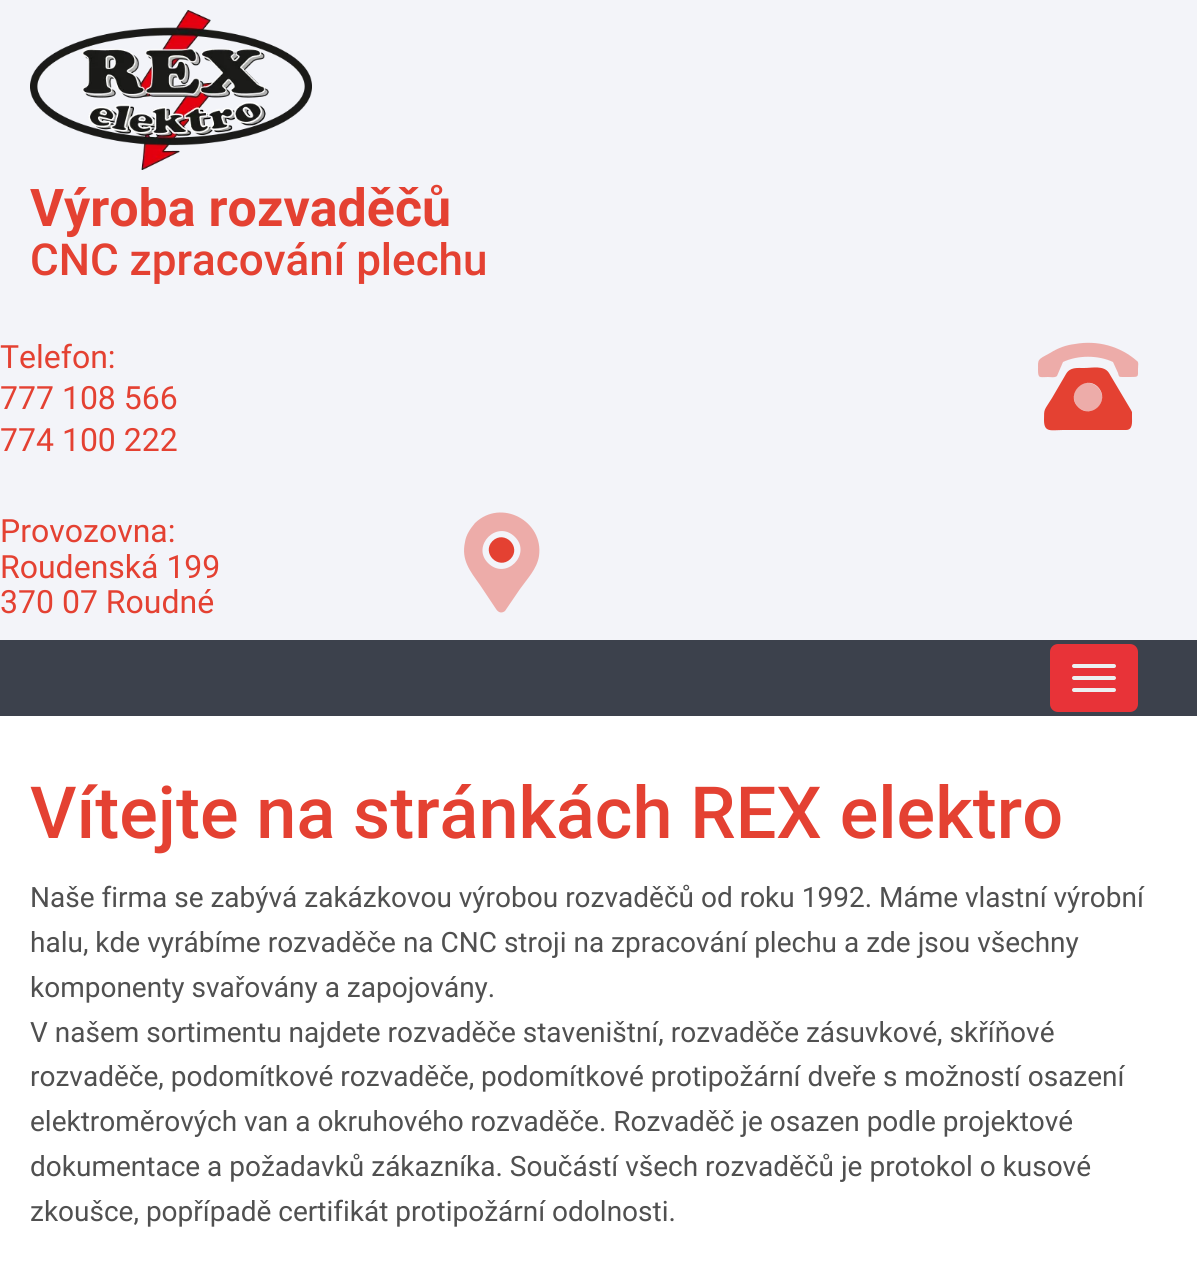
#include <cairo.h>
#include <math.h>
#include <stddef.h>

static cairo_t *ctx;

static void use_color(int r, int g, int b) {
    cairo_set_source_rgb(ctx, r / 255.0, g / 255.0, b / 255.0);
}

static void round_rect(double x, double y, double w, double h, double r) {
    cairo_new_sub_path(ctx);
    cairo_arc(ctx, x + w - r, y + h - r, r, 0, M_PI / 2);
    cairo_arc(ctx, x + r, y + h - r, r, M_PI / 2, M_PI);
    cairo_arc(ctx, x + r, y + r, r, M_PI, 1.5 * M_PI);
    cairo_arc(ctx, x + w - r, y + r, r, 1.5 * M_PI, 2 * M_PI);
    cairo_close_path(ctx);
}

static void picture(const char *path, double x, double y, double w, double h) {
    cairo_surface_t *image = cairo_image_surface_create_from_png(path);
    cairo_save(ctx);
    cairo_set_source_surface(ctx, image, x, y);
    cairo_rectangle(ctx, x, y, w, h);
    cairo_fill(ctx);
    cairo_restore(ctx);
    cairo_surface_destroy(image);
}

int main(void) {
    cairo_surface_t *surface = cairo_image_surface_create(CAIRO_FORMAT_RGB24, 1197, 1284);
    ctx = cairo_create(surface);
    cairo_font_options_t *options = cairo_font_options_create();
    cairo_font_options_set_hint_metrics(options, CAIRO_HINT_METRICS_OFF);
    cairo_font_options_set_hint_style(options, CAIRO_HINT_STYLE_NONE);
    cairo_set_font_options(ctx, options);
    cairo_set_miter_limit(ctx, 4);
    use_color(255, 255, 255);
    cairo_paint(ctx);
    use_color(243, 244, 249);
    cairo_rectangle(ctx, 0, 0, 1197, 640);
    cairo_fill(ctx);
    picture("img1.png", 30, 10, 282, 160);
    cairo_select_font_face(ctx, "Roboto", CAIRO_FONT_SLANT_NORMAL, CAIRO_FONT_WEIGHT_BOLD);
    cairo_set_font_size(ctx, 52);
    use_color(228, 65, 50);
    cairo_move_to(ctx, 30, 226);
    cairo_show_text(ctx, "Výroba rozvaděčů");
    cairo_select_font_face(ctx, "Roboto Medium", CAIRO_FONT_SLANT_NORMAL, CAIRO_FONT_WEIGHT_NORMAL);
    cairo_set_font_size(ctx, 44);
    cairo_move_to(ctx, 30, 275);
    cairo_show_text(ctx, "CNC zpracování plechu");
    cairo_select_font_face(ctx, "Roboto", CAIRO_FONT_SLANT_NORMAL, CAIRO_FONT_WEIGHT_NORMAL);
    cairo_set_font_size(ctx, 32);
    cairo_move_to(ctx, 0, 368);
    cairo_show_text(ctx, "Telefon:");
    cairo_move_to(ctx, 0, 409);
    cairo_show_text(ctx, "777 108 566");
    cairo_move_to(ctx, 0, 451);
    cairo_show_text(ctx, "774 100 222");
    cairo_new_path(ctx);
    cairo_move_to(ctx, 1131, 410);
    cairo_line_to(ctx, 1132, 412);
    cairo_line_to(ctx, 1132, 417);
    cairo_curve_to(ctx, 1132, 422, 1133, 430, 1126, 430);
    cairo_line_to(ctx, 1063, 430);
    cairo_curve_to(ctx, 1051, 430, 1044, 433, 1044, 420);
    cairo_curve_to(ctx, 1044, 408, 1044, 411, 1052, 398);
    cairo_line_to(ctx, 1066, 374);
    cairo_curve_to(ctx, 1070, 367, 1077, 368, 1084, 368);
    cairo_curve_to(ctx, 1092, 368, 1104, 365, 1109, 373);
    cairo_close_path(ctx);
    cairo_move_to(ctx, 1078, 407);
    cairo_curve_to(ctx, 1091, 420, 1111, 401, 1098, 387);
    cairo_curve_to(ctx, 1085, 374, 1065, 394, 1078, 407);
    cairo_close_path(ctx);
    cairo_fill(ctx);
    cairo_set_source_rgba(ctx, 0.894, 0.255, 0.196, 0.4);
    cairo_new_path(ctx);
    cairo_move_to(ctx, 1078, 387);
    cairo_curve_to(ctx, 1091, 374, 1111, 394, 1098, 407);
    cairo_curve_to(ctx, 1085, 420, 1065, 401, 1078, 387);
    cairo_close_path(ctx);
    cairo_move_to(ctx, 1137, 361);
    cairo_curve_to(ctx, 1139, 362, 1138, 366, 1138, 369);
    cairo_curve_to(ctx, 1138, 377, 1139, 377, 1130, 377);
    cairo_line_to(ctx, 1123, 377);
    cairo_curve_to(ctx, 1119, 377, 1119, 377, 1118, 373);
    cairo_line_to(ctx, 1113, 362);
    cairo_curve_to(ctx, 1098, 355, 1078, 355, 1063, 362);
    cairo_line_to(ctx, 1057, 376);
    cairo_curve_to(ctx, 1055, 378, 1050, 377, 1048, 377);
    cairo_curve_to(ctx, 1040, 377, 1038, 379, 1038, 370);
    cairo_curve_to(ctx, 1038, 359, 1037, 360, 1050, 353);
    cairo_curve_to(ctx, 1058, 348, 1066, 345, 1075, 344);
    cairo_curve_to(ctx, 1097, 340, 1120, 346, 1137, 361);
    cairo_close_path(ctx);
    cairo_fill(ctx);
    use_color(228, 65, 50);
    cairo_move_to(ctx, 0, 542);
    cairo_show_text(ctx, "Provozovna:");
    cairo_move_to(ctx, 0, 578);
    cairo_show_text(ctx, "Roudenská 199");
    cairo_move_to(ctx, 0, 613);
    cairo_show_text(ctx, "370 07 Roudné");
    cairo_new_path(ctx);
    cairo_move_to(ctx, 510.5, 559);
    cairo_curve_to(ctx, 498.5, 570.5, 481, 553, 492.5, 541);
    cairo_curve_to(ctx, 504.5, 529.5, 522, 547, 510.5, 559);
    cairo_close_path(ctx);
    cairo_fill(ctx);
    use_color(237, 172, 169);
    cairo_new_path(ctx);
    cairo_move_to(ctx, 475, 523);
    cairo_curve_to(ctx, 501, 498, 544, 521, 539, 556);
    cairo_curve_to(ctx, 537, 569, 527, 579, 520, 589);
    cairo_line_to(ctx, 505, 611);
    cairo_curve_to(ctx, 501, 614, 498, 612, 496, 609);
    cairo_line_to(ctx, 480, 585);
    cairo_curve_to(ctx, 470, 571, 461, 560, 465, 542);
    cairo_curve_to(ctx, 466, 535, 470, 529, 475, 523);
    cairo_close_path(ctx);
    cairo_move_to(ctx, 488, 563);
    cairo_curve_to(ctx, 506, 581, 532, 554, 515, 537);
    cairo_curve_to(ctx, 497, 519, 471, 546, 488, 563);
    cairo_close_path(ctx);
    cairo_fill(ctx);
    use_color(60, 65, 76);
    cairo_rectangle(ctx, 0, 640, 1197, 76);
    cairo_fill(ctx);
    use_color(232, 51, 56);
    round_rect(1050, 644, 88, 68, 8);
    cairo_fill(ctx);
    use_color(236, 240, 241);
    round_rect(1072, 664, 44, 4, 2);
    cairo_fill(ctx);
    round_rect(1072, 676, 44, 4, 2);
    cairo_fill(ctx);
    round_rect(1072, 688, 44, 4, 2);
    cairo_fill(ctx);
    cairo_select_font_face(ctx, "Roboto Medium", CAIRO_FONT_SLANT_NORMAL, CAIRO_FONT_WEIGHT_NORMAL);
    cairo_set_font_size(ctx, 72);
    use_color(228, 65, 50);
    cairo_move_to(ctx, 30, 838);
    cairo_show_text(ctx, "Vítejte na stránkách REX elektro");
    cairo_select_font_face(ctx, "Roboto", CAIRO_FONT_SLANT_NORMAL, CAIRO_FONT_WEIGHT_NORMAL);
    cairo_set_font_size(ctx, 28);
    use_color(80, 80, 80);
    cairo_move_to(ctx, 30, 907);
    cairo_show_text(ctx, "Naše firma se zabývá zakázkovou výrobou rozvaděčů od roku 1992. Máme vlastní výrobní");
    cairo_move_to(ctx, 30, 952);
    cairo_show_text(ctx, "halu, kde vyrábíme rozvaděče na CNC stroji na zpracování plechu a zde jsou všechny");
    cairo_move_to(ctx, 30, 997);
    cairo_show_text(ctx, "komponenty svařovány a zapojovány.");
    cairo_move_to(ctx, 30, 1042);
    cairo_show_text(ctx, "V našem sortimentu najdete rozvaděče staveništní, rozvaděče zásuvkové, skříňové");
    cairo_move_to(ctx, 30, 1086);
    cairo_show_text(ctx, "rozvaděče, podomítkové rozvaděče, podomítkové protipožární dveře s možností osazení");
    cairo_move_to(ctx, 30, 1131);
    cairo_show_text(ctx, "elektroměrových van a okruhového rozvaděče. Rozvaděč je osazen podle projektové");
    cairo_move_to(ctx, 30, 1176);
    cairo_show_text(ctx, "dokumentace a požadavků zákazníka. Součástí všech rozvaděčů je protokol o kusové");
    cairo_move_to(ctx, 30, 1221);
    cairo_show_text(ctx, "zkoušce, popřípadě certifikát protipožární odolnosti.");
    cairo_surface_write_to_png(surface, "result.png");
    cairo_font_options_destroy(options);
    cairo_destroy(ctx);
    cairo_surface_destroy(surface);
    return 0;
}
